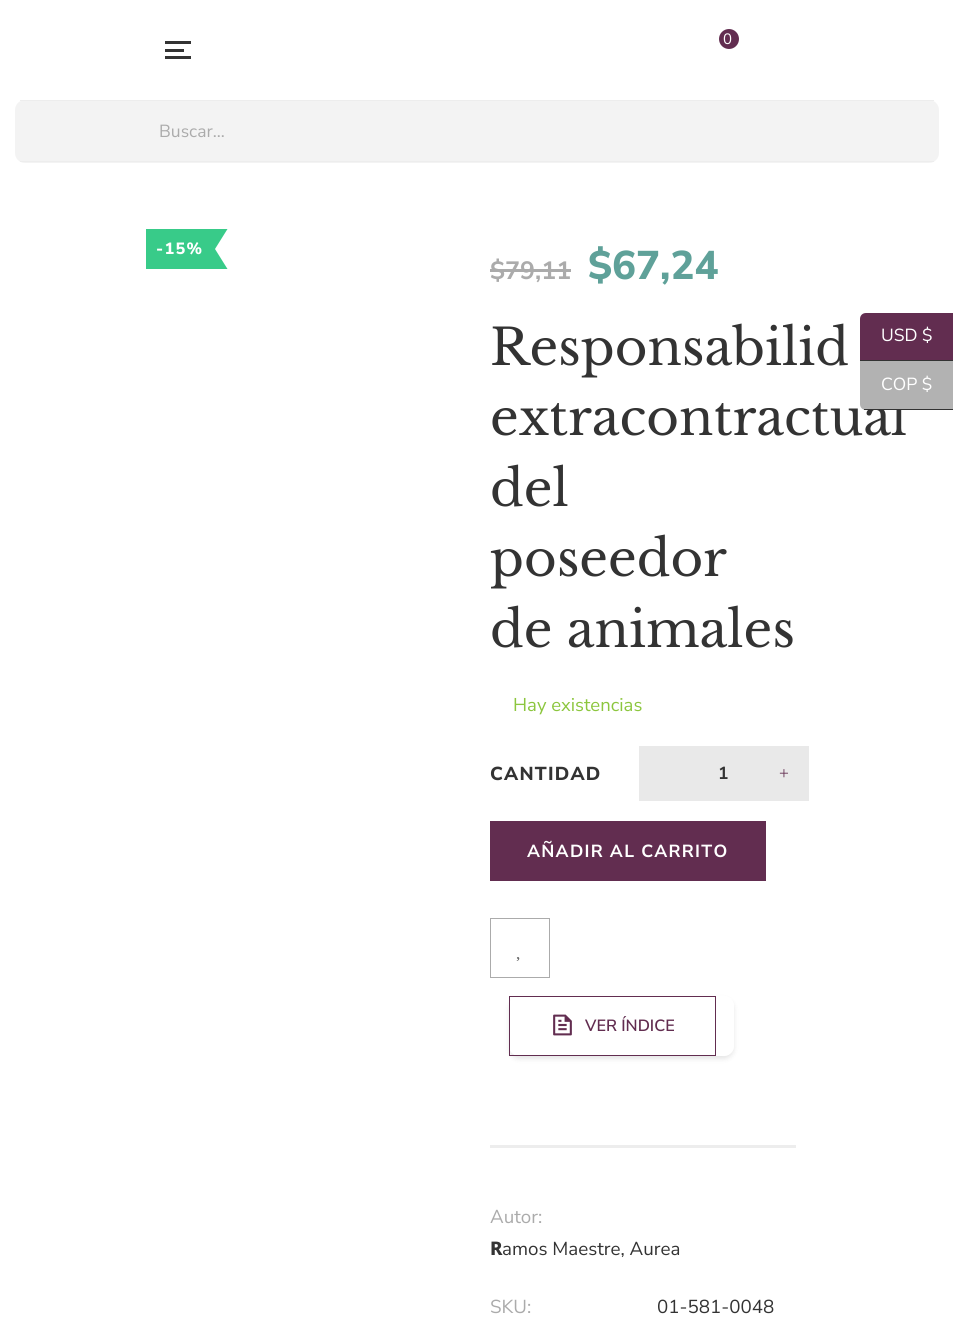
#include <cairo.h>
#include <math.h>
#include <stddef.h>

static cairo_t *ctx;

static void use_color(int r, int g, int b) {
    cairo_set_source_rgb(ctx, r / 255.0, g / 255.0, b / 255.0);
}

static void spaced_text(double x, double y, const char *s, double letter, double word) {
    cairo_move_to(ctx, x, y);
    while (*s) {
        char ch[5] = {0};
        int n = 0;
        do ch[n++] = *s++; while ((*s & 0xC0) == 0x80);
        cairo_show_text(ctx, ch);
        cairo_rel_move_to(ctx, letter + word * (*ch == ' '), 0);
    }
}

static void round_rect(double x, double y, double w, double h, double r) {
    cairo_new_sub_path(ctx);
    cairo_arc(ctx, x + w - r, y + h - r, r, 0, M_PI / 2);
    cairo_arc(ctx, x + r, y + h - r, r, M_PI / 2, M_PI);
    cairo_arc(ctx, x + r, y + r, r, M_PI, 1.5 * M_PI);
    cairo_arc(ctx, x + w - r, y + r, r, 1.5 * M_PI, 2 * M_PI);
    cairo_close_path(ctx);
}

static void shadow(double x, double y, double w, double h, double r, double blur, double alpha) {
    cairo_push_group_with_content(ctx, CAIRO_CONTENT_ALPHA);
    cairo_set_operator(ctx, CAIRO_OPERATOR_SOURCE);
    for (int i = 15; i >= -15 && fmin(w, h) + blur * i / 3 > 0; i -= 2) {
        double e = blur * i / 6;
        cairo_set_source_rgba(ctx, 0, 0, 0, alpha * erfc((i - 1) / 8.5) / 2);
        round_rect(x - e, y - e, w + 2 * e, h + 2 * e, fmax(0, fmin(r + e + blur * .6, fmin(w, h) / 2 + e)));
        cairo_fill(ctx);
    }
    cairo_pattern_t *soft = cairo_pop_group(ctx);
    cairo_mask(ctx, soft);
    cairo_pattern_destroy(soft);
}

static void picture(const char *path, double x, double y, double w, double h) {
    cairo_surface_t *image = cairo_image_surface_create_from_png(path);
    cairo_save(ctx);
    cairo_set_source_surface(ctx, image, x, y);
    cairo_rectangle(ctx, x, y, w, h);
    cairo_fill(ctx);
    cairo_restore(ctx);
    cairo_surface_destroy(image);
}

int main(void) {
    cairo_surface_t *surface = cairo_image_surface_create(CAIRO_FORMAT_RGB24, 953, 1335);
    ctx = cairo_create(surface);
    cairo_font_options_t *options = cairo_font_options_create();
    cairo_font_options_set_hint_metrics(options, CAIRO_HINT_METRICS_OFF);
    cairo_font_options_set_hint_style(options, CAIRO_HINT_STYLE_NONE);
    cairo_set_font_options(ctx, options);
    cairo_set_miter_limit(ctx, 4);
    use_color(255, 255, 255);
    cairo_paint(ctx);
    use_color(98, 45, 80);
    cairo_arc(ctx, 729, 39, 10, 0, 2 * M_PI);
    cairo_fill(ctx);
    cairo_select_font_face(ctx, "Nunito Sans", CAIRO_FONT_SLANT_NORMAL, CAIRO_FONT_WEIGHT_NORMAL);
    cairo_set_font_size(ctx, 15);
    use_color(255, 255, 255);
    cairo_move_to(ctx, 723, 44);
    cairo_show_text(ctx, "0");
    use_color(51, 51, 51);
    cairo_rectangle(ctx, 165, 49, 19, 3);
    cairo_fill(ctx);
    cairo_rectangle(ctx, 165, 41, 26, 3);
    cairo_fill(ctx);
    cairo_rectangle(ctx, 165, 56, 26, 3);
    cairo_fill(ctx);
    use_color(243, 243, 243);
    round_rect(15, 100, 924, 63, 10);
    cairo_fill(ctx);
    use_color(237, 237, 237);
    cairo_rectangle(ctx, 20, 100, 914, 1);
    cairo_fill(ctx);
    cairo_rectangle(ctx, 20, 161, 914, 1);
    cairo_fill(ctx);
    cairo_set_font_size(ctx, 17.5);
    use_color(171, 171, 171);
    cairo_move_to(ctx, 159, 137);
    cairo_show_text(ctx, "Buscar...");
    use_color(56, 203, 137);
    cairo_rectangle(ctx, 146, 229, 69, 40);
    cairo_fill(ctx);
    cairo_select_font_face(ctx, "Nunito Sans ExtraBold", CAIRO_FONT_SLANT_NORMAL, CAIRO_FONT_WEIGHT_NORMAL);
    cairo_set_font_size(ctx, 16.25);
    use_color(255, 255, 255);
    spaced_text(156, 254, "-15%", 1.25, 0);
    use_color(56, 203, 137);
    cairo_new_path(ctx);
    cairo_move_to(ctx, 215, 229);
    cairo_line_to(ctx, 227.5, 229);
    cairo_line_to(ctx, 215, 249);
    cairo_close_path(ctx);
    cairo_move_to(ctx, 227.5, 269);
    cairo_line_to(ctx, 215, 269);
    cairo_line_to(ctx, 215, 249);
    cairo_close_path(ctx);
    cairo_fill(ctx);
    cairo_select_font_face(ctx, "Nunito Sans", CAIRO_FONT_SLANT_NORMAL, CAIRO_FONT_WEIGHT_BOLD);
    cairo_set_font_size(ctx, 25);
    use_color(171, 171, 171);
    cairo_move_to(ctx, 490, 279);
    cairo_show_text(ctx, "$79,11");
    cairo_rectangle(ctx, 490, 269, 81, 3);
    cairo_fill(ctx);
    cairo_select_font_face(ctx, "Nunito Sans ExtraBold", CAIRO_FONT_SLANT_NORMAL, CAIRO_FONT_WEIGHT_NORMAL);
    cairo_set_font_size(ctx, 40);
    use_color(95, 161, 153);
    cairo_move_to(ctx, 588, 279);
    cairo_show_text(ctx, "$67,24");
    cairo_select_font_face(ctx, "Libre Baskerville", CAIRO_FONT_SLANT_NORMAL, CAIRO_FONT_WEIGHT_NORMAL);
    cairo_set_font_size(ctx, 50);
    use_color(51, 51, 51);
    cairo_move_to(ctx, 490, 365);
    cairo_show_text(ctx, "Responsabilid");
    cairo_move_to(ctx, 490, 435);
    cairo_show_text(ctx, "extracontractual");
    cairo_move_to(ctx, 490, 506);
    cairo_show_text(ctx, "del");
    cairo_move_to(ctx, 490, 576);
    cairo_show_text(ctx, "poseedor");
    cairo_move_to(ctx, 490, 647);
    cairo_show_text(ctx, "de animales");
    cairo_select_font_face(ctx, "Nunito Sans", CAIRO_FONT_SLANT_NORMAL, CAIRO_FONT_WEIGHT_NORMAL);
    cairo_set_font_size(ctx, 18.5);
    use_color(140, 198, 62);
    cairo_move_to(ctx, 513, 711);
    cairo_show_text(ctx, "Hay existencias");
    cairo_select_font_face(ctx, "Nunito Sans ExtraBold", CAIRO_FONT_SLANT_NORMAL, CAIRO_FONT_WEIGHT_NORMAL);
    cairo_set_font_size(ctx, 18.75);
    use_color(51, 51, 51);
    spaced_text(490, 780, "CANTIDAD", 1.25, 0);
    use_color(233, 233, 233);
    cairo_rectangle(ctx, 639, 746, 170, 55);
    cairo_fill(ctx);
    cairo_select_font_face(ctx, "Nunito Sans", CAIRO_FONT_SLANT_NORMAL, CAIRO_FONT_WEIGHT_BOLD);
    cairo_set_font_size(ctx, 17.5);
    use_color(51, 51, 51);
    cairo_move_to(ctx, 718, 779);
    cairo_show_text(ctx, "1");
    cairo_select_font_face(ctx, "Liberation Serif", CAIRO_FONT_SLANT_NORMAL, CAIRO_FONT_WEIGHT_NORMAL);
    use_color(98, 45, 80);
    cairo_move_to(ctx, 779, 779);
    cairo_show_text(ctx, "+");
    cairo_rectangle(ctx, 490, 821, 276, 60);
    cairo_fill(ctx);
    cairo_select_font_face(ctx, "Nunito Sans", CAIRO_FONT_SLANT_NORMAL, CAIRO_FONT_WEIGHT_BOLD);
    use_color(255, 255, 255);
    spaced_text(527, 857, "AÑADIR AL CARRITO", 1.25, 0);
    cairo_rectangle(ctx, 490.5, 918.5, 59, 59);
    use_color(171, 171, 171);
    cairo_set_line_width(ctx, 1);
    cairo_stroke(ctx);
    picture("img1.png", 516, 957, 4, 4);
    cairo_save(ctx);
    cairo_set_fill_rule(ctx, CAIRO_FILL_RULE_EVEN_ODD);
    cairo_new_path(ctx);
    cairo_move_to(ctx, 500, 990);
    cairo_line_to(ctx, 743, 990);
    cairo_line_to(ctx, 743, 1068);
    cairo_line_to(ctx, 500, 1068);
    cairo_close_path(ctx);
    cairo_move_to(ctx, 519, 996);
    cairo_line_to(ctx, 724, 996);
    cairo_curve_to(ctx, 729.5, 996, 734, 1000.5, 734, 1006);
    cairo_line_to(ctx, 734, 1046);
    cairo_curve_to(ctx, 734, 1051.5, 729.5, 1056, 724, 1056);
    cairo_line_to(ctx, 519, 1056);
    cairo_curve_to(ctx, 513.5, 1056, 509, 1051.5, 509, 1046);
    cairo_line_to(ctx, 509, 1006);
    cairo_curve_to(ctx, 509, 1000.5, 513.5, 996, 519, 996);
    cairo_close_path(ctx);
    cairo_clip(ctx);
    use_color(0, 0, 0);
    shadow(509, 999, 225, 60, 10, 2.5, 0.1);
    cairo_restore(ctx);
    cairo_rectangle(ctx, 509.5, 996.5, 206, 59);
    use_color(98, 45, 80);
    cairo_stroke(ctx);
    picture("img2.png", 553, 1014, 19, 22);
    cairo_save(ctx);
    cairo_rectangle(ctx, 585, 1016, 90, 22);
    cairo_clip(ctx);
    cairo_select_font_face(ctx, "Nunito Sans SemiBold", CAIRO_FONT_SLANT_NORMAL, CAIRO_FONT_WEIGHT_NORMAL);
    cairo_set_font_size(ctx, 16.25);
    cairo_move_to(ctx, 585, 1031);
    cairo_show_text(ctx, "VER ÍNDICE");
    cairo_restore(ctx);
    use_color(237, 237, 237);
    cairo_rectangle(ctx, 490, 1145, 306, 3);
    cairo_fill(ctx);
    cairo_select_font_face(ctx, "Nunito Sans", CAIRO_FONT_SLANT_NORMAL, CAIRO_FONT_WEIGHT_NORMAL);
    cairo_set_font_size(ctx, 18.75);
    use_color(171, 171, 171);
    cairo_move_to(ctx, 490, 1223);
    cairo_show_text(ctx, "Autor:");
    cairo_select_font_face(ctx, "Noto Sans ExtraBold", CAIRO_FONT_SLANT_NORMAL, CAIRO_FONT_WEIGHT_NORMAL);
    use_color(51, 51, 51);
    cairo_move_to(ctx, 490, 1255);
    cairo_show_text(ctx, "R");
    cairo_select_font_face(ctx, "Nunito Sans", CAIRO_FONT_SLANT_NORMAL, CAIRO_FONT_WEIGHT_NORMAL);
    cairo_move_to(ctx, 502, 1255);
    cairo_show_text(ctx, "amos Maestre, Aurea");
    use_color(171, 171, 171);
    cairo_move_to(ctx, 490, 1313);
    cairo_show_text(ctx, "SKU:");
    use_color(51, 51, 51);
    cairo_move_to(ctx, 657, 1313);
    cairo_show_text(ctx, "01-581-0048");
    use_color(98, 45, 80);
    cairo_new_path(ctx);
    cairo_move_to(ctx, 866, 313);
    cairo_line_to(ctx, 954, 313);
    cairo_line_to(ctx, 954, 361);
    cairo_line_to(ctx, 860, 361);
    cairo_line_to(ctx, 860, 319);
    cairo_curve_to(ctx, 860, 315.5, 862.5, 313, 866, 313);
    cairo_close_path(ctx);
    cairo_fill(ctx);
    use_color(51, 51, 51);
    cairo_rectangle(ctx, 860, 360, 93, 1);
    cairo_fill(ctx);
    cairo_set_font_size(ctx, 17.5);
    use_color(255, 255, 255);
    cairo_move_to(ctx, 881, 341);
    cairo_show_text(ctx, "USD $");
    use_color(178, 178, 178);
    cairo_new_path(ctx);
    cairo_move_to(ctx, 860, 361);
    cairo_line_to(ctx, 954, 361);
    cairo_line_to(ctx, 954, 410);
    cairo_line_to(ctx, 866, 410);
    cairo_curve_to(ctx, 862.5, 410, 860, 407.5, 860, 404);
    cairo_close_path(ctx);
    cairo_fill(ctx);
    use_color(51, 51, 51);
    cairo_rectangle(ctx, 864, 409, 89, 1);
    cairo_fill(ctx);
    use_color(255, 255, 255);
    cairo_move_to(ctx, 881, 390);
    cairo_show_text(ctx, "COP $");
    cairo_surface_write_to_png(surface, "result.png");
    cairo_font_options_destroy(options);
    cairo_destroy(ctx);
    cairo_surface_destroy(surface);
    return 0;
}
